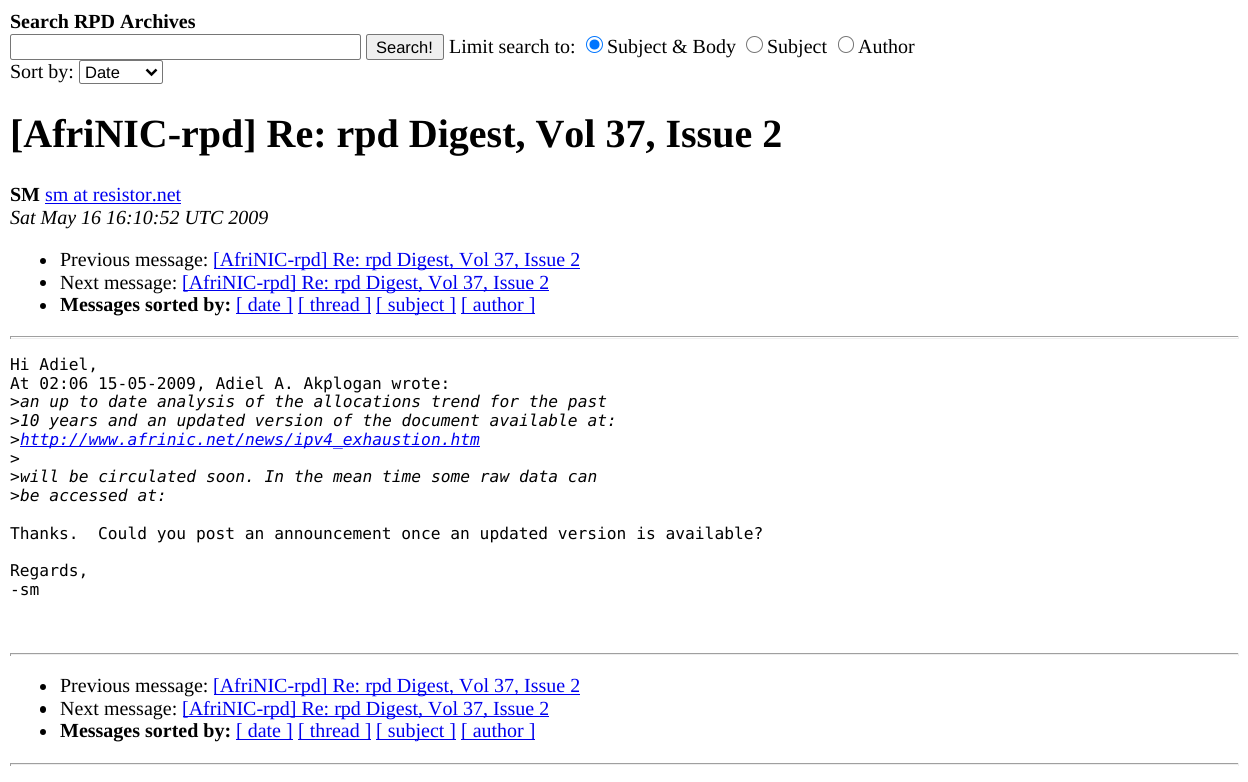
#include <cairo.h>
#include <math.h>
#include <stddef.h>

static cairo_t *ctx;

static void use_color(int r, int g, int b) {
    cairo_set_source_rgb(ctx, r / 255.0, g / 255.0, b / 255.0);
}

static void round_rect(double x, double y, double w, double h, double r) {
    cairo_new_sub_path(ctx);
    cairo_arc(ctx, x + w - r, y + h - r, r, 0, M_PI / 2);
    cairo_arc(ctx, x + r, y + h - r, r, M_PI / 2, M_PI);
    cairo_arc(ctx, x + r, y + r, r, M_PI, 1.5 * M_PI);
    cairo_arc(ctx, x + w - r, y + r, r, 1.5 * M_PI, 2 * M_PI);
    cairo_close_path(ctx);
}

int main(void) {
    cairo_surface_t *surface = cairo_image_surface_create(CAIRO_FORMAT_RGB24, 1248, 782);
    ctx = cairo_create(surface);
    cairo_font_options_t *options = cairo_font_options_create();
    cairo_font_options_set_hint_metrics(options, CAIRO_HINT_METRICS_OFF);
    cairo_font_options_set_hint_style(options, CAIRO_HINT_STYLE_NONE);
    cairo_set_font_options(ctx, options);
    cairo_set_miter_limit(ctx, 4);
    use_color(255, 255, 255);
    cairo_paint(ctx);
    cairo_select_font_face(ctx, "Liberation Serif", CAIRO_FONT_SLANT_NORMAL, CAIRO_FONT_WEIGHT_BOLD);
    cairo_set_font_size(ctx, 20);
    use_color(0, 0, 0);
    cairo_move_to(ctx, 10, 28);
    cairo_show_text(ctx, "Search RPD Archives");
    round_rect(10.5, 34.5, 350, 25, 2);
    use_color(118, 118, 118);
    cairo_set_line_width(ctx, 1);
    cairo_stroke(ctx);
    use_color(239, 239, 239);
    round_rect(366.5, 34.5, 77, 25, 2);
    cairo_fill_preserve(ctx);
    use_color(118, 118, 118);
    cairo_stroke(ctx);
    cairo_select_font_face(ctx, "Liberation Sans", CAIRO_FONT_SLANT_NORMAL, CAIRO_FONT_WEIGHT_NORMAL);
    cairo_set_font_size(ctx, 16.5);
    use_color(0, 0, 0);
    cairo_move_to(ctx, 376, 53);
    cairo_show_text(ctx, "Search!");
    cairo_select_font_face(ctx, "Liberation Serif", CAIRO_FONT_SLANT_NORMAL, CAIRO_FONT_WEIGHT_NORMAL);
    cairo_set_font_size(ctx, 20);
    cairo_move_to(ctx, 449, 53);
    cairo_show_text(ctx, "Limit search to:");
    cairo_new_path(ctx);
    cairo_arc(ctx, 594.5, 44.5, 8, 0, 2 * M_PI);
    use_color(0, 117, 255);
    cairo_stroke(ctx);
    cairo_arc(ctx, 594.5, 44.5, 5, 0, 2 * M_PI);
    cairo_fill(ctx);
    use_color(0, 0, 0);
    cairo_move_to(ctx, 607, 53);
    cairo_show_text(ctx, "Subject & Body");
    cairo_new_path(ctx);
    cairo_arc(ctx, 754.5, 44.5, 8, 0, 2 * M_PI);
    use_color(118, 118, 118);
    cairo_stroke(ctx);
    use_color(0, 0, 0);
    cairo_move_to(ctx, 767, 53);
    cairo_show_text(ctx, "Subject");
    round_rect(838.5, 36.5, 15, 16, 7.5);
    use_color(118, 118, 118);
    cairo_stroke(ctx);
    use_color(0, 0, 0);
    cairo_move_to(ctx, 858, 53);
    cairo_show_text(ctx, "Author");
    cairo_move_to(ctx, 10, 78);
    cairo_show_text(ctx, "Sort by:");
    round_rect(79.5, 60.5, 83, 23, 2);
    use_color(118, 118, 118);
    cairo_stroke(ctx);
    cairo_new_path(ctx);
    cairo_move_to(ctx, 146.5, 69.5);
    cairo_line_to(ctx, 151.5, 74.5);
    cairo_line_to(ctx, 156.5, 69.5);
    use_color(0, 0, 0);
    cairo_set_line_width(ctx, 2.5);
    cairo_stroke(ctx);
    cairo_select_font_face(ctx, "Liberation Sans", CAIRO_FONT_SLANT_NORMAL, CAIRO_FONT_WEIGHT_NORMAL);
    cairo_set_font_size(ctx, 16.5);
    cairo_move_to(ctx, 85, 78);
    cairo_show_text(ctx, "Date");
    cairo_select_font_face(ctx, "Liberation Serif", CAIRO_FONT_SLANT_NORMAL, CAIRO_FONT_WEIGHT_BOLD);
    cairo_set_font_size(ctx, 40);
    cairo_move_to(ctx, 10, 147);
    cairo_show_text(ctx, "[AfriNIC-rpd] Re: rpd Digest, Vol 37, Issue 2");
    cairo_set_font_size(ctx, 20);
    cairo_move_to(ctx, 10, 201);
    cairo_show_text(ctx, "SM");
    cairo_select_font_face(ctx, "Liberation Serif", CAIRO_FONT_SLANT_NORMAL, CAIRO_FONT_WEIGHT_NORMAL);
    use_color(0, 0, 238);
    cairo_move_to(ctx, 45, 201);
    cairo_show_text(ctx, "sm at resistor.net");
    cairo_rectangle(ctx, 45, 203, 136, 1);
    cairo_fill(ctx);
    cairo_select_font_face(ctx, "Liberation Serif", CAIRO_FONT_SLANT_ITALIC, CAIRO_FONT_WEIGHT_NORMAL);
    use_color(0, 0, 0);
    cairo_move_to(ctx, 10, 224);
    cairo_show_text(ctx, "Sat May 16 16:10:52 UTC 2009");
    cairo_new_path(ctx);
    cairo_arc(ctx, 43, 261, 3, 0, 2 * M_PI);
    cairo_fill(ctx);
    cairo_select_font_face(ctx, "Liberation Serif", CAIRO_FONT_SLANT_NORMAL, CAIRO_FONT_WEIGHT_NORMAL);
    cairo_move_to(ctx, 60, 266);
    cairo_show_text(ctx, "Previous message:");
    use_color(0, 0, 238);
    cairo_rectangle(ctx, 214, 268, 366, 1);
    cairo_fill(ctx);
    cairo_move_to(ctx, 213, 266);
    cairo_show_text(ctx, "[AfriNIC-rpd] Re: rpd Digest, Vol 37, Issue 2");
    use_color(0, 0, 0);
    cairo_new_path(ctx);
    cairo_arc(ctx, 43, 283, 3, 0, 2 * M_PI);
    cairo_fill(ctx);
    cairo_move_to(ctx, 60, 289);
    cairo_show_text(ctx, "Next message:");
    use_color(0, 0, 238);
    cairo_rectangle(ctx, 183, 290, 366, 1);
    cairo_fill(ctx);
    cairo_move_to(ctx, 182, 289);
    cairo_show_text(ctx, "[AfriNIC-rpd] Re: rpd Digest, Vol 37, Issue 2");
    use_color(0, 0, 0);
    cairo_new_path(ctx);
    cairo_arc(ctx, 43, 306, 3, 0, 2 * M_PI);
    cairo_fill(ctx);
    cairo_select_font_face(ctx, "Liberation Serif", CAIRO_FONT_SLANT_NORMAL, CAIRO_FONT_WEIGHT_BOLD);
    cairo_move_to(ctx, 60, 311);
    cairo_show_text(ctx, "Messages sorted by:");
    use_color(0, 0, 238);
    cairo_rectangle(ctx, 236, 313, 57, 1);
    cairo_fill(ctx);
    cairo_select_font_face(ctx, "Liberation Serif", CAIRO_FONT_SLANT_NORMAL, CAIRO_FONT_WEIGHT_NORMAL);
    cairo_move_to(ctx, 236, 311);
    cairo_show_text(ctx, "[ date ]");
    cairo_rectangle(ctx, 298, 313, 73, 1);
    cairo_fill(ctx);
    cairo_move_to(ctx, 298, 311);
    cairo_show_text(ctx, "[ thread ]");
    cairo_rectangle(ctx, 376, 313, 80, 1);
    cairo_fill(ctx);
    cairo_move_to(ctx, 376, 311);
    cairo_show_text(ctx, "[ subject ]");
    cairo_rectangle(ctx, 461, 313, 74, 1);
    cairo_fill(ctx);
    cairo_move_to(ctx, 461, 311);
    cairo_show_text(ctx, "[ author ]");
    use_color(159, 159, 159);
    cairo_rectangle(ctx, 10, 336, 1229, 1);
    cairo_fill(ctx);
    use_color(238, 238, 238);
    cairo_rectangle(ctx, 1238, 336, 1, 3);
    cairo_fill(ctx);
    cairo_rectangle(ctx, 10, 338, 1229, 1);
    cairo_fill(ctx);
    use_color(159, 159, 159);
    cairo_rectangle(ctx, 10, 336, 1, 3);
    cairo_fill(ctx);
    cairo_select_font_face(ctx, "DejaVu Sans Mono", CAIRO_FONT_SLANT_NORMAL, CAIRO_FONT_WEIGHT_NORMAL);
    cairo_set_font_size(ctx, 16.25);
    use_color(0, 0, 0);
    cairo_move_to(ctx, 10, 370);
    cairo_show_text(ctx, "Hi Adiel,");
    cairo_move_to(ctx, 10, 389);
    cairo_show_text(ctx, "At 02:06 15-05-2009, Adiel A. Akplogan wrote:");
    cairo_move_to(ctx, 10, 407);
    cairo_show_text(ctx, ">");
    cairo_select_font_face(ctx, "DejaVu Sans Mono", CAIRO_FONT_SLANT_ITALIC, CAIRO_FONT_WEIGHT_NORMAL);
    cairo_move_to(ctx, 20, 407);
    cairo_show_text(ctx, "an up to date analysis of the allocations trend for the past");
    cairo_select_font_face(ctx, "DejaVu Sans Mono", CAIRO_FONT_SLANT_NORMAL, CAIRO_FONT_WEIGHT_NORMAL);
    cairo_move_to(ctx, 10, 426);
    cairo_show_text(ctx, ">");
    cairo_select_font_face(ctx, "DejaVu Sans Mono", CAIRO_FONT_SLANT_ITALIC, CAIRO_FONT_WEIGHT_NORMAL);
    cairo_move_to(ctx, 20, 426);
    cairo_show_text(ctx, "10 years and an updated version of the document available at:");
    cairo_select_font_face(ctx, "DejaVu Sans Mono", CAIRO_FONT_SLANT_NORMAL, CAIRO_FONT_WEIGHT_NORMAL);
    cairo_move_to(ctx, 10, 445);
    cairo_show_text(ctx, ">");
    use_color(0, 0, 238);
    cairo_rectangle(ctx, 20, 446, 460, 1);
    cairo_fill(ctx);
    cairo_select_font_face(ctx, "DejaVu Sans Mono", CAIRO_FONT_SLANT_ITALIC, CAIRO_FONT_WEIGHT_NORMAL);
    cairo_move_to(ctx, 20, 445);
    cairo_show_text(ctx, "http://www.afrinic.net/news/ipv4_exhaustion.htm");
    cairo_select_font_face(ctx, "DejaVu Sans Mono", CAIRO_FONT_SLANT_NORMAL, CAIRO_FONT_WEIGHT_NORMAL);
    use_color(0, 0, 0);
    cairo_move_to(ctx, 10, 464);
    cairo_show_text(ctx, ">");
    cairo_move_to(ctx, 10, 482);
    cairo_show_text(ctx, ">");
    cairo_select_font_face(ctx, "DejaVu Sans Mono", CAIRO_FONT_SLANT_ITALIC, CAIRO_FONT_WEIGHT_NORMAL);
    cairo_move_to(ctx, 20, 482);
    cairo_show_text(ctx, "will be circulated soon. In the mean time some raw data can");
    cairo_select_font_face(ctx, "DejaVu Sans Mono", CAIRO_FONT_SLANT_NORMAL, CAIRO_FONT_WEIGHT_NORMAL);
    cairo_move_to(ctx, 10, 501);
    cairo_show_text(ctx, ">");
    cairo_select_font_face(ctx, "DejaVu Sans Mono", CAIRO_FONT_SLANT_ITALIC, CAIRO_FONT_WEIGHT_NORMAL);
    cairo_move_to(ctx, 20, 501);
    cairo_show_text(ctx, "be accessed at:");
    cairo_select_font_face(ctx, "DejaVu Sans Mono", CAIRO_FONT_SLANT_NORMAL, CAIRO_FONT_WEIGHT_NORMAL);
    cairo_move_to(ctx, 10, 539);
    cairo_show_text(ctx, "Thanks.  Could you post an announcement once an updated version is available?");
    cairo_move_to(ctx, 10, 576);
    cairo_show_text(ctx, "Regards,");
    cairo_move_to(ctx, 10, 595);
    cairo_show_text(ctx, "-sm");
    use_color(159, 159, 159);
    cairo_rectangle(ctx, 10, 653, 1229, 1);
    cairo_fill(ctx);
    use_color(238, 238, 238);
    cairo_rectangle(ctx, 1238, 653, 1, 3);
    cairo_fill(ctx);
    cairo_rectangle(ctx, 10, 654, 1229, 1);
    cairo_fill(ctx);
    use_color(159, 159, 159);
    cairo_rectangle(ctx, 10, 653, 1, 3);
    cairo_fill(ctx);
    use_color(0, 0, 0);
    cairo_arc(ctx, 43, 687, 3, 0, 2 * M_PI);
    cairo_fill(ctx);
    cairo_select_font_face(ctx, "Liberation Serif", CAIRO_FONT_SLANT_NORMAL, CAIRO_FONT_WEIGHT_NORMAL);
    cairo_set_font_size(ctx, 20);
    cairo_move_to(ctx, 60, 692);
    cairo_show_text(ctx, "Previous message:");
    use_color(0, 0, 238);
    cairo_rectangle(ctx, 214, 694, 366, 1);
    cairo_fill(ctx);
    cairo_move_to(ctx, 213, 692);
    cairo_show_text(ctx, "[AfriNIC-rpd] Re: rpd Digest, Vol 37, Issue 2");
    use_color(0, 0, 0);
    round_rect(40, 706, 6, 7, 3);
    cairo_fill(ctx);
    cairo_move_to(ctx, 60, 715);
    cairo_show_text(ctx, "Next message:");
    use_color(0, 0, 238);
    cairo_rectangle(ctx, 183, 716, 366, 1);
    cairo_fill(ctx);
    cairo_move_to(ctx, 182, 715);
    cairo_show_text(ctx, "[AfriNIC-rpd] Re: rpd Digest, Vol 37, Issue 2");
    use_color(0, 0, 0);
    cairo_new_path(ctx);
    cairo_arc(ctx, 43, 732, 3, 0, 2 * M_PI);
    cairo_fill(ctx);
    cairo_select_font_face(ctx, "Liberation Serif", CAIRO_FONT_SLANT_NORMAL, CAIRO_FONT_WEIGHT_BOLD);
    cairo_move_to(ctx, 60, 737);
    cairo_show_text(ctx, "Messages sorted by:");
    use_color(0, 0, 238);
    cairo_rectangle(ctx, 236, 739, 57, 1);
    cairo_fill(ctx);
    cairo_select_font_face(ctx, "Liberation Serif", CAIRO_FONT_SLANT_NORMAL, CAIRO_FONT_WEIGHT_NORMAL);
    cairo_move_to(ctx, 236, 737);
    cairo_show_text(ctx, "[ date ]");
    cairo_rectangle(ctx, 298, 739, 73, 1);
    cairo_fill(ctx);
    cairo_move_to(ctx, 298, 737);
    cairo_show_text(ctx, "[ thread ]");
    cairo_rectangle(ctx, 376, 739, 80, 1);
    cairo_fill(ctx);
    cairo_move_to(ctx, 376, 737);
    cairo_show_text(ctx, "[ subject ]");
    cairo_rectangle(ctx, 461, 739, 74, 1);
    cairo_fill(ctx);
    cairo_move_to(ctx, 461, 737);
    cairo_show_text(ctx, "[ author ]");
    use_color(159, 159, 159);
    cairo_rectangle(ctx, 10, 763, 1229, 1);
    cairo_fill(ctx);
    use_color(238, 238, 238);
    cairo_rectangle(ctx, 1238, 763, 1, 3);
    cairo_fill(ctx);
    cairo_rectangle(ctx, 10, 764, 1229, 1);
    cairo_fill(ctx);
    use_color(159, 159, 159);
    cairo_rectangle(ctx, 10, 763, 1, 3);
    cairo_fill(ctx);
    cairo_surface_write_to_png(surface, "result.png");
    cairo_font_options_destroy(options);
    cairo_destroy(ctx);
    cairo_surface_destroy(surface);
    return 0;
}
